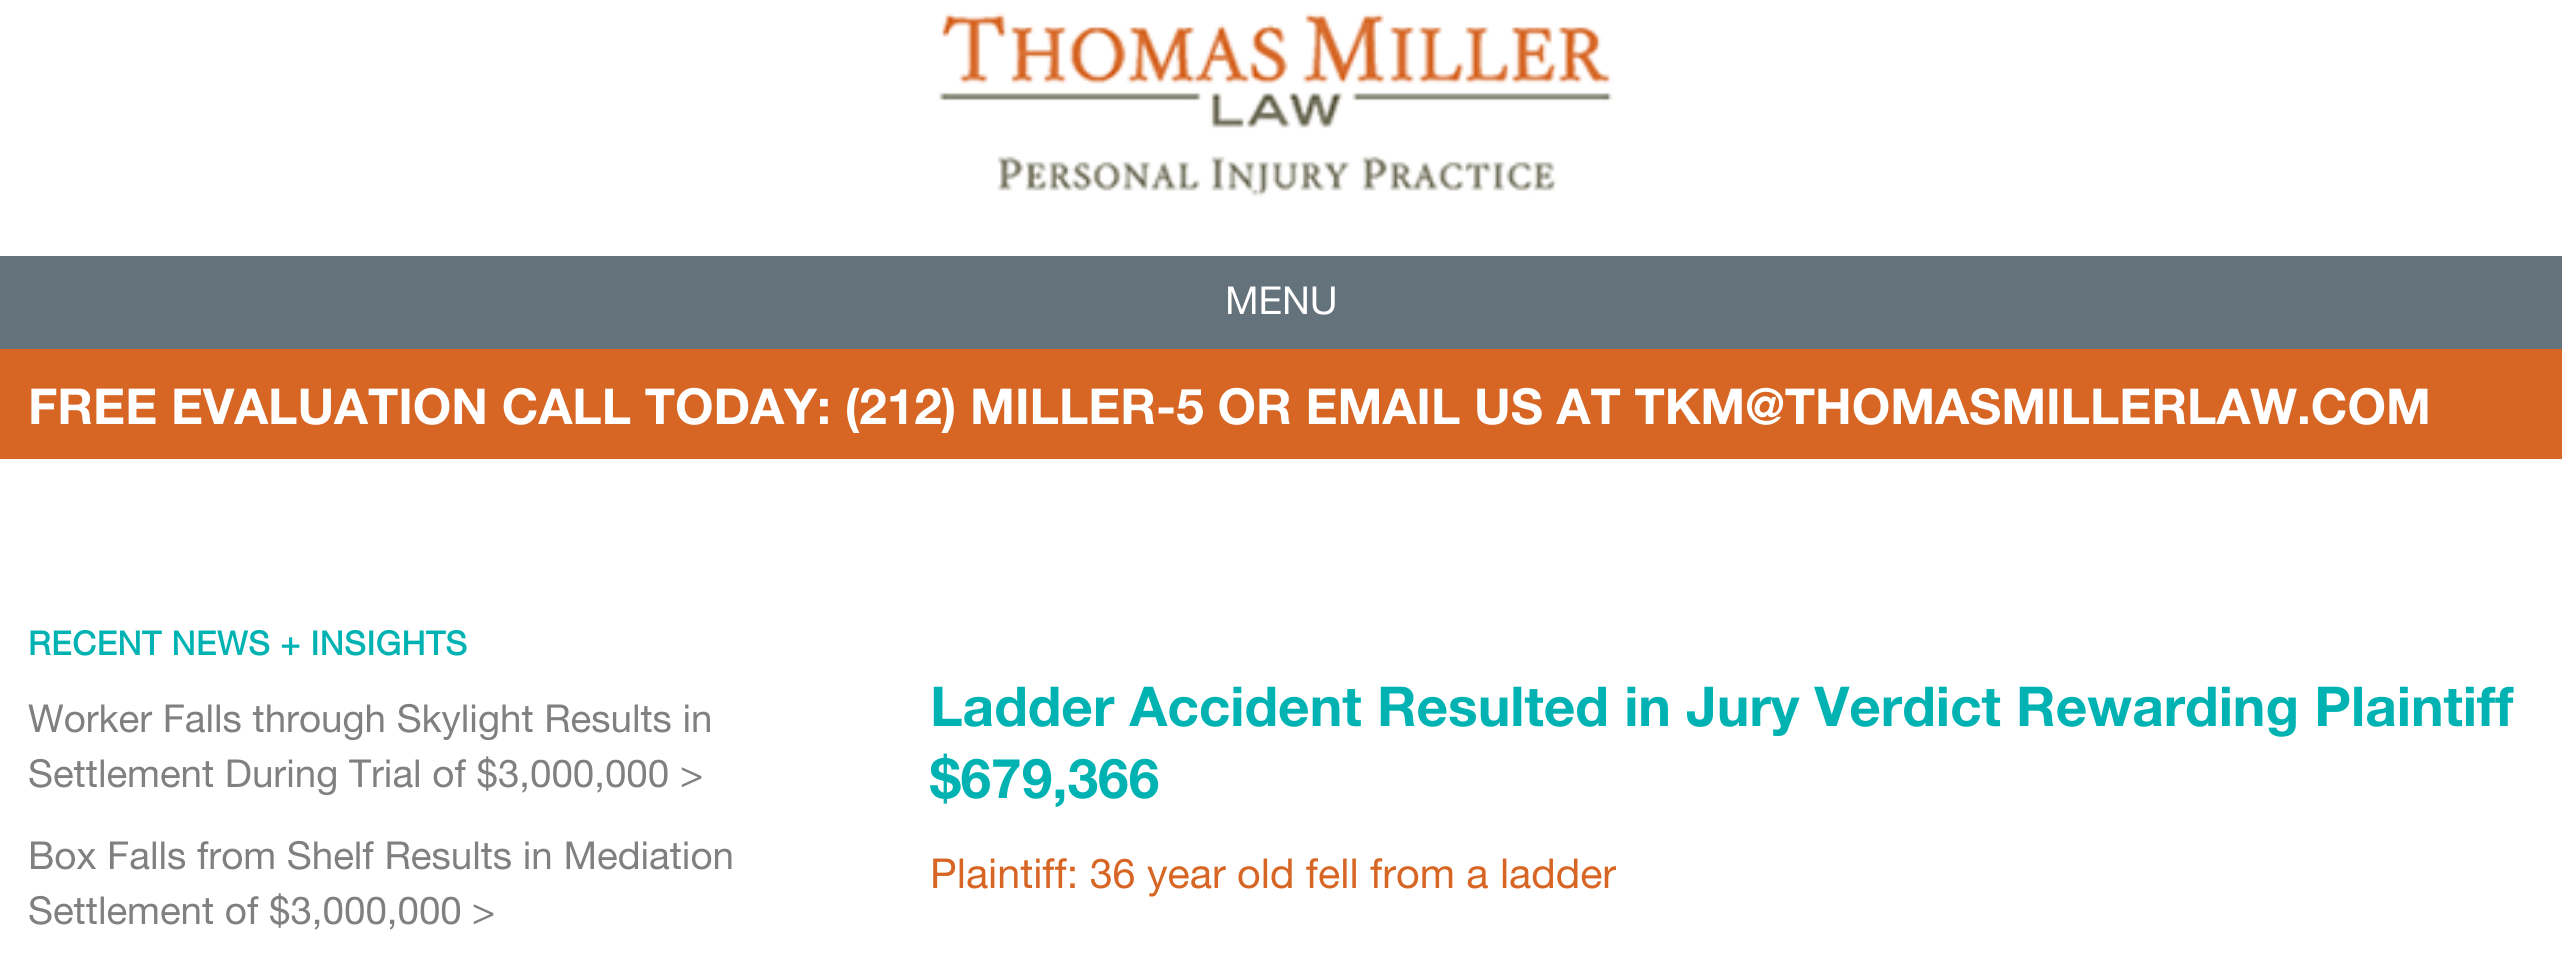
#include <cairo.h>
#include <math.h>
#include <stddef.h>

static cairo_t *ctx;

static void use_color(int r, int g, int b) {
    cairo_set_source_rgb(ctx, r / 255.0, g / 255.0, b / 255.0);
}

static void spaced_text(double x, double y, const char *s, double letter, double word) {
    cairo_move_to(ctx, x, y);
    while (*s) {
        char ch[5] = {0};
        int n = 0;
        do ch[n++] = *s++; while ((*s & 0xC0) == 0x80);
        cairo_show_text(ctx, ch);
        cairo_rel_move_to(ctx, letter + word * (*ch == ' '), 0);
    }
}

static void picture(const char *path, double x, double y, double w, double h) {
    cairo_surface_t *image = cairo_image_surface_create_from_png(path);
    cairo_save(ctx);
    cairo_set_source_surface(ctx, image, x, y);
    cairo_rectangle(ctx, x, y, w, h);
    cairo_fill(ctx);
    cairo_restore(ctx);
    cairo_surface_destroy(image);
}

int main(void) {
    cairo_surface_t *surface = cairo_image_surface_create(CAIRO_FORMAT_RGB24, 2562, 976);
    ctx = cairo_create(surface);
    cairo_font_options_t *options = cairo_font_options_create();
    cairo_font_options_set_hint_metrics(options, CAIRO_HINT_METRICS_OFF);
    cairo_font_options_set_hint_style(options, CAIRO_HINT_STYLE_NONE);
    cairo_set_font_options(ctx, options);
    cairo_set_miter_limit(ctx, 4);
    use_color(255, 255, 255);
    cairo_paint(ctx);
    picture("img1.png", 938, 13, 675, 184);
    use_color(99, 114, 123);
    cairo_rectangle(ctx, 0, 256, 2562, 93);
    cairo_fill(ctx);
    cairo_select_font_face(ctx, "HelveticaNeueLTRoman", CAIRO_FONT_SLANT_NORMAL, CAIRO_FONT_WEIGHT_NORMAL);
    cairo_set_font_size(ctx, 38.5);
    use_color(255, 255, 255);
    cairo_move_to(ctx, 1225, 314);
    cairo_show_text(ctx, "MENU");
    use_color(215, 102, 36);
    cairo_rectangle(ctx, 0, 349, 2562, 110);
    cairo_fill(ctx);
    cairo_select_font_face(ctx, "Helvetica Neue", CAIRO_FONT_SLANT_NORMAL, CAIRO_FONT_WEIGHT_BOLD);
    cairo_set_font_size(ctx, 49.5);
    use_color(255, 255, 255);
    cairo_move_to(ctx, 28, 424);
    cairo_show_text(ctx, "FREE EVALUATION CALL TODAY: (212) MILLER-5 OR EMAIL US AT TKM@THOMASMILLERLAW.COM");
    cairo_select_font_face(ctx, "HelveticaNeueLTRoman", CAIRO_FONT_SLANT_NORMAL, CAIRO_FONT_WEIGHT_BOLD);
    cairo_set_font_size(ctx, 33);
    use_color(0, 178, 178);
    spaced_text(28, 655, "RECENT NEWS + INSIGHTS", 0.7, 0);
    cairo_select_font_face(ctx, "HelveticaNeueLTRoman", CAIRO_FONT_SLANT_NORMAL, CAIRO_FONT_WEIGHT_NORMAL);
    cairo_set_font_size(ctx, 38.5);
    use_color(128, 128, 128);
    cairo_move_to(ctx, 28, 732);
    cairo_show_text(ctx, "Worker Falls through Skylight Results in");
    cairo_move_to(ctx, 28, 787);
    cairo_show_text(ctx, "Settlement During Trial of $3,000,000 >");
    cairo_move_to(ctx, 28, 869);
    cairo_show_text(ctx, "Box Falls from Shelf Results in Mediation");
    cairo_move_to(ctx, 28, 924);
    cairo_show_text(ctx, "Settlement of $3,000,000");
    cairo_move_to(ctx, 472, 924);
    cairo_show_text(ctx, ">");
    cairo_select_font_face(ctx, "Helvetica Neue", CAIRO_FONT_SLANT_NORMAL, CAIRO_FONT_WEIGHT_BOLD);
    cairo_set_font_size(ctx, 55);
    use_color(0, 178, 178);
    cairo_move_to(ctx, 930, 726);
    cairo_show_text(ctx, "Ladder Accident Resulted in Jury Verdict Rewarding Plaintiff");
    cairo_move_to(ctx, 930, 798);
    cairo_show_text(ctx, "$679,366");
    cairo_select_font_face(ctx, "HelveticaNeueLTRoman", CAIRO_FONT_SLANT_NORMAL, CAIRO_FONT_WEIGHT_NORMAL);
    cairo_set_font_size(ctx, 41.25);
    use_color(215, 102, 36);
    cairo_move_to(ctx, 930, 888);
    cairo_show_text(ctx, "Plaintiff: 36 year old fell from a ladder");
    cairo_surface_write_to_png(surface, "result.png");
    cairo_font_options_destroy(options);
    cairo_destroy(ctx);
    cairo_surface_destroy(surface);
    return 0;
}
